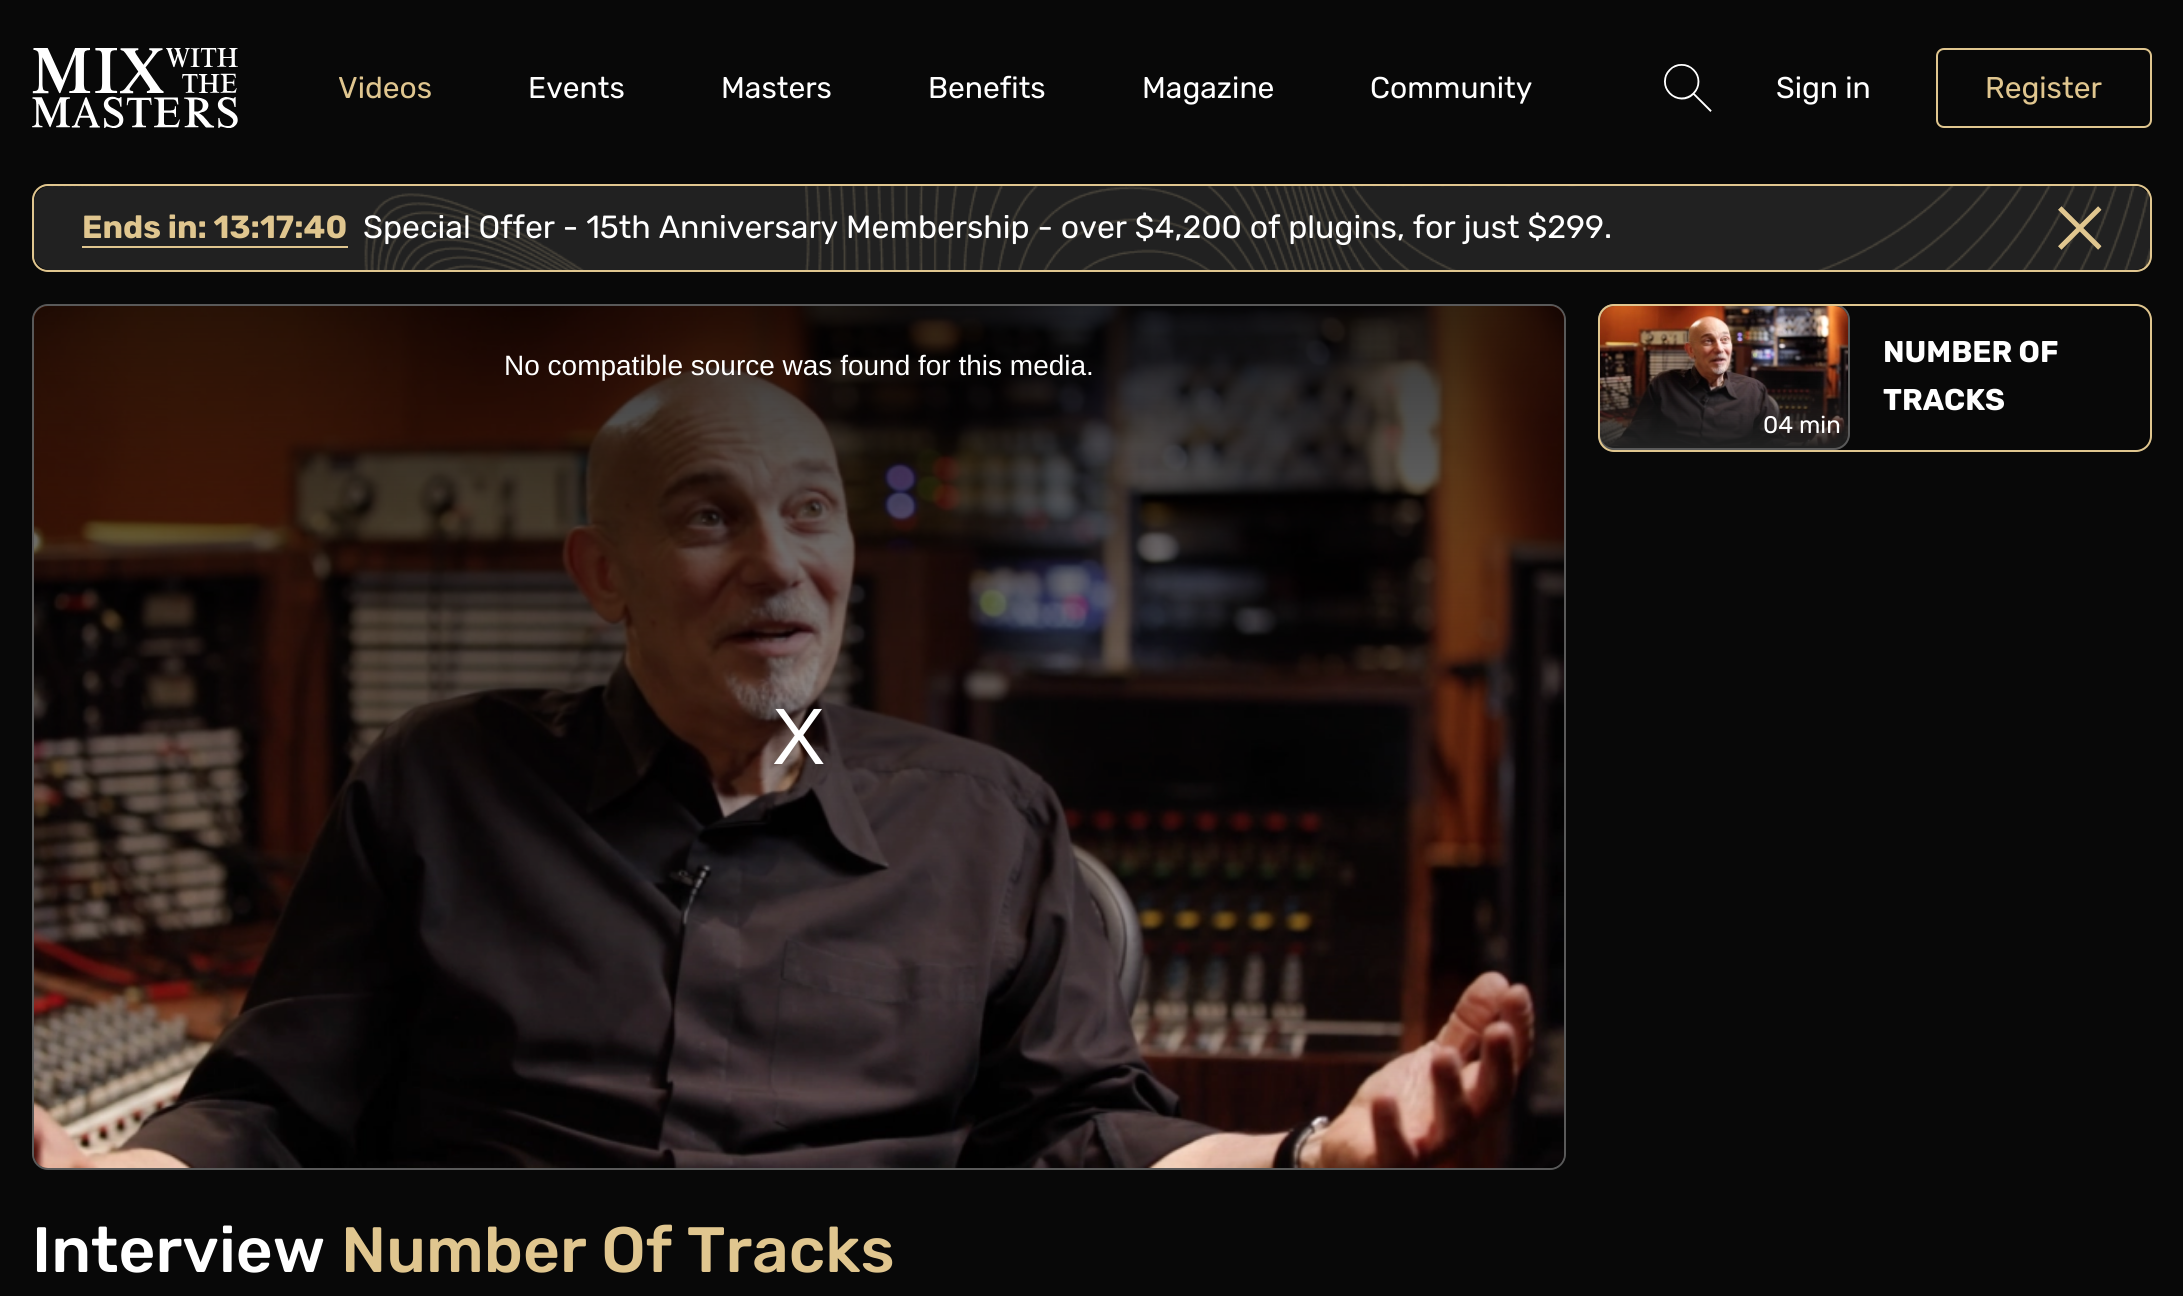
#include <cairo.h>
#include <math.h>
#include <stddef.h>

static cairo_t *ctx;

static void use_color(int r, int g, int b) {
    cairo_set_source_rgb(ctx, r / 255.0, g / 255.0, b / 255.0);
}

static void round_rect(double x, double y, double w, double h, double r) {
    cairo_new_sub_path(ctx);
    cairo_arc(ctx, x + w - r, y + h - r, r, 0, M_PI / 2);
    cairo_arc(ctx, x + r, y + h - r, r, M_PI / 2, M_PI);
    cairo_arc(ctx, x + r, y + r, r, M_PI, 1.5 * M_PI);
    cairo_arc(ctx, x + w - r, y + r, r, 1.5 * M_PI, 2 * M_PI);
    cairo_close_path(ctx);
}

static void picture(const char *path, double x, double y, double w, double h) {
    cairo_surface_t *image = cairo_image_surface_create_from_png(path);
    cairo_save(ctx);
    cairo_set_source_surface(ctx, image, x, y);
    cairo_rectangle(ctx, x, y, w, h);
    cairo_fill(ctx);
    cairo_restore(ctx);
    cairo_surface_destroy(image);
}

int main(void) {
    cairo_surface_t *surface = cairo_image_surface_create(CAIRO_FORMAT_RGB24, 2183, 1296);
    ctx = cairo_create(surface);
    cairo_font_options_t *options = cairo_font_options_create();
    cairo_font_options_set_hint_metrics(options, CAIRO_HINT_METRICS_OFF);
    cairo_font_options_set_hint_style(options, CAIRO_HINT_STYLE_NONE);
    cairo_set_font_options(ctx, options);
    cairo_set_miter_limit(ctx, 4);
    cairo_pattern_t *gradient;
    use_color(8, 8, 8);
    cairo_paint(ctx);
    picture("img1.png", 32, 48, 206, 80);
    cairo_select_font_face(ctx, "Rubik", CAIRO_FONT_SLANT_NORMAL, CAIRO_FONT_WEIGHT_NORMAL);
    cairo_set_font_size(ctx, 30);
    use_color(224, 198, 143);
    cairo_move_to(ctx, 338, 98);
    cairo_show_text(ctx, "Videos");
    use_color(255, 255, 255);
    cairo_move_to(ctx, 528, 98);
    cairo_show_text(ctx, "Events");
    cairo_move_to(ctx, 721, 98);
    cairo_show_text(ctx, "Masters");
    cairo_move_to(ctx, 928, 98);
    cairo_show_text(ctx, "Benefits");
    cairo_move_to(ctx, 1142, 98);
    cairo_show_text(ctx, "Magazine");
    cairo_move_to(ctx, 1370, 98);
    cairo_show_text(ctx, "Community");
    picture("img2.png", 1664, 64, 48, 48);
    cairo_move_to(ctx, 1776, 98);
    cairo_show_text(ctx, "Sign in");
    round_rect(1937, 49, 214, 78, 7);
    use_color(224, 198, 143);
    cairo_stroke(ctx);
    cairo_move_to(ctx, 1985, 98);
    cairo_show_text(ctx, "Register");
    picture("img3.png", 32, 184, 2120, 88);
    round_rect(33, 185, 2118, 86, 15);
    cairo_stroke(ctx);
    cairo_set_source_rgba(ctx, 0.188, 0.188, 0.188, 0.7);
    round_rect(34, 186, 2116, 84, 16);
    cairo_fill(ctx);
    cairo_select_font_face(ctx, "Rubik", CAIRO_FONT_SLANT_NORMAL, CAIRO_FONT_WEIGHT_BOLD);
    cairo_set_font_size(ctx, 32);
    use_color(224, 198, 143);
    cairo_move_to(ctx, 82, 238);
    cairo_show_text(ctx, "Ends in: 13:17:40");
    cairo_rectangle(ctx, 82, 246, 266, 2);
    cairo_fill(ctx);
    cairo_select_font_face(ctx, "Rubik", CAIRO_FONT_SLANT_NORMAL, CAIRO_FONT_WEIGHT_NORMAL);
    use_color(255, 255, 255);
    cairo_move_to(ctx, 363, 238);
    cairo_show_text(ctx, "Special Offer - 15th Anniversary Membership - over $4,200 of plugins, for just $299.");
    picture("img4.png", 2058, 206, 44, 44);
    use_color(33, 33, 33);
    round_rect(32, 304, 1534, 866, 16);
    cairo_fill(ctx);
    round_rect(33, 305, 1532, 864, 15);
    cairo_set_source_rgba(ctx, 1, 1, 1, 0.25);
    cairo_stroke(ctx);
    picture("img5.png", 34, 306, 1530, 862);
    gradient = cairo_pattern_create_linear(799, 306, 799, 1168);
    cairo_pattern_add_color_stop_rgba(gradient, 0, 0, 0, 0, 0.8);
    cairo_pattern_add_color_stop_rgba(gradient, 1, 0, 0, 0, 0);
    cairo_set_source(ctx, gradient);
    cairo_pattern_destroy(gradient);
    round_rect(34, 306, 1530, 862, 14);
    cairo_fill(ctx);
    cairo_select_font_face(ctx, "Liberation Sans", CAIRO_FONT_SLANT_NORMAL, CAIRO_FONT_WEIGHT_NORMAL);
    cairo_set_font_size(ctx, 28);
    use_color(255, 255, 255);
    cairo_move_to(ctx, 504, 375);
    cairo_show_text(ctx, "No compatible source was found for this media.");
    cairo_set_font_size(ctx, 80);
    cairo_move_to(ctx, 772, 764);
    cairo_show_text(ctx, "X");
    use_color(33, 33, 33);
    round_rect(1598, 304, 252, 146, 16);
    cairo_fill(ctx);
    round_rect(1599, 305, 250, 144, 15);
    cairo_set_source_rgba(ctx, 1, 1, 1, 0.25);
    cairo_stroke(ctx);
    picture("img6.png", 1600, 306, 248, 140);
    round_rect(1599, 305, 552, 146, 15);
    use_color(224, 198, 143);
    cairo_stroke(ctx);
    cairo_select_font_face(ctx, "Rubik", CAIRO_FONT_SLANT_NORMAL, CAIRO_FONT_WEIGHT_BOLD);
    cairo_set_font_size(ctx, 30);
    use_color(255, 255, 255);
    cairo_move_to(ctx, 1883, 362);
    cairo_show_text(ctx, "NUMBER OF");
    cairo_move_to(ctx, 1883, 410);
    cairo_show_text(ctx, "TRACKS");
    cairo_select_font_face(ctx, "Rubik", CAIRO_FONT_SLANT_NORMAL, CAIRO_FONT_WEIGHT_NORMAL);
    cairo_set_font_size(ctx, 24);
    cairo_move_to(ctx, 1763, 433);
    cairo_show_text(ctx, "04 min");
    cairo_select_font_face(ctx, "Rubik Medium", CAIRO_FONT_SLANT_NORMAL, CAIRO_FONT_WEIGHT_NORMAL);
    cairo_set_font_size(ctx, 64);
    cairo_move_to(ctx, 32, 1272);
    cairo_show_text(ctx, "Interview");
    use_color(224, 198, 143);
    cairo_move_to(ctx, 341, 1272);
    cairo_show_text(ctx, "Number Of Tracks");
    cairo_surface_write_to_png(surface, "result.png");
    cairo_font_options_destroy(options);
    cairo_destroy(ctx);
    cairo_surface_destroy(surface);
    return 0;
}
